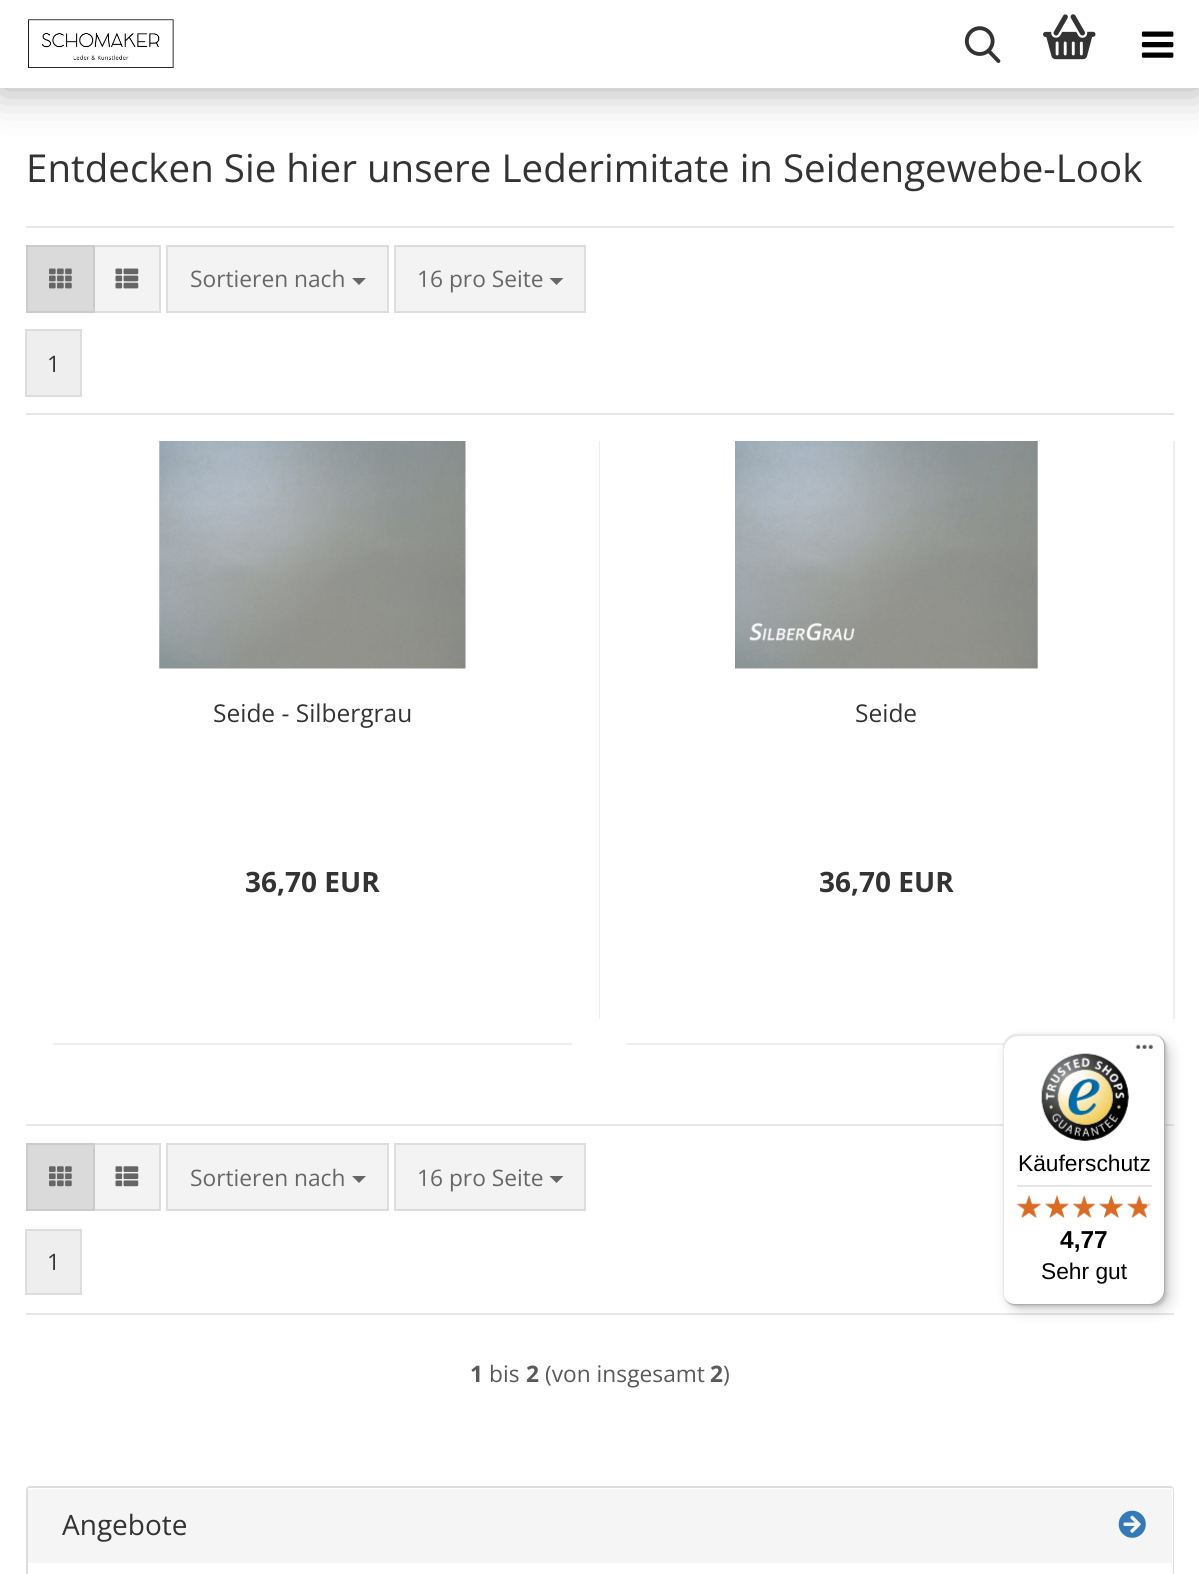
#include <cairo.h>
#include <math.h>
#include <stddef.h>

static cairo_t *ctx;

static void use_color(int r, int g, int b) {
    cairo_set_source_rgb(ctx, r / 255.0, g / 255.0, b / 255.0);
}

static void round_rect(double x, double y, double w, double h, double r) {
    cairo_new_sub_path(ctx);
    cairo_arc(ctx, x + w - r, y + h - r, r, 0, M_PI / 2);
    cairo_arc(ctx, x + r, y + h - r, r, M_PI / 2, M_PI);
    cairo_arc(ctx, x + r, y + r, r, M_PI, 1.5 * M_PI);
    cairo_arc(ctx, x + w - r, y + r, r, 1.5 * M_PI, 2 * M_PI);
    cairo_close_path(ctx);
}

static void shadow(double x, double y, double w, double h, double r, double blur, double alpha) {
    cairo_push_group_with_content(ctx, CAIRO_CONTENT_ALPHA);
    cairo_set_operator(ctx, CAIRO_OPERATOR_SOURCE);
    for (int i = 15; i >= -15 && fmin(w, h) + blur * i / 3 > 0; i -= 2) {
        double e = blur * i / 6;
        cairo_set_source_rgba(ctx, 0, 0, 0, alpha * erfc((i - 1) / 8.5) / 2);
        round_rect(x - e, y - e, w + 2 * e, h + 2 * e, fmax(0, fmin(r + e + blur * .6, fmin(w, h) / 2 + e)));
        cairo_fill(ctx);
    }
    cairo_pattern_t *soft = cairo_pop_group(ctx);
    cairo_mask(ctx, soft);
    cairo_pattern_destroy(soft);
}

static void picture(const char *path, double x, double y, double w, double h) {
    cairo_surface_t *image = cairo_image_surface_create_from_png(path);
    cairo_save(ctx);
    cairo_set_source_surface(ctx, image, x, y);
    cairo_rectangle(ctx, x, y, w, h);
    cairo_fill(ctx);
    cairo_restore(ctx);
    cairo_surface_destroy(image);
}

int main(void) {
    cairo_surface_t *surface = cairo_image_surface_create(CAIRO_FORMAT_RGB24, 1199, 1574);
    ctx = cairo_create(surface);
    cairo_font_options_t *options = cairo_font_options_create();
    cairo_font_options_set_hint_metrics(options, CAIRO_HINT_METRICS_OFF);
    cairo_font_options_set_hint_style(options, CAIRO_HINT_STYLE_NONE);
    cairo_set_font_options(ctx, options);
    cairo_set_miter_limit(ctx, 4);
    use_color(255, 255, 255);
    cairo_paint(ctx);
    use_color(0, 0, 0);
    shadow(0, 0, 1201, 88, 0, 22, 0.35);
    use_color(255, 255, 255);
    cairo_rectangle(ctx, 0, 0, 1199, 88);
    cairo_fill(ctx);
    picture("img1.png", 28, 19, 146, 49);
    picture("img2.png", 964, 26, 37, 37);
    picture("img3.png", 1043, 14, 53, 46);
    picture("img4.png", 1141, 31, 33, 27);
    cairo_select_font_face(ctx, "Open Sans", CAIRO_FONT_SLANT_NORMAL, CAIRO_FONT_WEIGHT_NORMAL);
    cairo_set_font_size(ctx, 38.5);
    use_color(51, 51, 51);
    cairo_move_to(ctx, 26, 182);
    cairo_show_text(ctx, "Entdecken Sie hier unsere Lederimitate in Seidengewebe-Look");
    use_color(231, 231, 231);
    cairo_rectangle(ctx, 26, 226, 1148, 2);
    cairo_fill(ctx);
    cairo_rectangle(ctx, 26, 413, 1148, 2);
    cairo_fill(ctx);
    use_color(243, 243, 243);
    cairo_rectangle(ctx, 94, 246, 66, 66);
    cairo_fill_preserve(ctx);
    use_color(221, 221, 221);
    cairo_stroke(ctx);
    use_color(218, 218, 218);
    cairo_rectangle(ctx, 27, 246, 67, 66);
    cairo_fill_preserve(ctx);
    use_color(204, 204, 204);
    cairo_stroke(ctx);
    picture("img5.png", 49, 268, 23, 21);
    picture("img6.png", 115, 268, 24, 21);
    use_color(243, 243, 243);
    cairo_rectangle(ctx, 167, 246, 221, 66);
    cairo_fill_preserve(ctx);
    use_color(221, 221, 221);
    cairo_stroke(ctx);
    cairo_set_font_size(ctx, 22.75);
    use_color(102, 102, 102);
    cairo_move_to(ctx, 190, 287);
    cairo_show_text(ctx, "Sortieren nach");
    cairo_new_path(ctx);
    cairo_move_to(ctx, 352, 278);
    cairo_line_to(ctx, 366, 278);
    cairo_line_to(ctx, 359, 285);
    cairo_close_path(ctx);
    cairo_fill(ctx);
    use_color(243, 243, 243);
    cairo_rectangle(ctx, 395, 246, 190, 66);
    cairo_fill_preserve(ctx);
    use_color(221, 221, 221);
    cairo_stroke(ctx);
    use_color(102, 102, 102);
    cairo_move_to(ctx, 417, 287);
    cairo_show_text(ctx, "16 pro Seite");
    cairo_new_path(ctx);
    cairo_move_to(ctx, 549.5, 278);
    cairo_line_to(ctx, 563.5, 278);
    cairo_line_to(ctx, 556.5, 285);
    cairo_close_path(ctx);
    cairo_fill(ctx);
    use_color(238, 238, 238);
    cairo_rectangle(ctx, 26, 330, 55, 66);
    cairo_fill_preserve(ctx);
    use_color(221, 221, 221);
    cairo_stroke(ctx);
    use_color(51, 51, 51);
    cairo_move_to(ctx, 47, 372);
    cairo_show_text(ctx, "1");
    use_color(238, 238, 238);
    cairo_rectangle(ctx, 599, 441, 1, 578);
    cairo_fill(ctx);
    cairo_rectangle(ctx, 53, 1043, 519, 2);
    cairo_fill(ctx);
    picture("img7.png", 159, 441, 307, 228);
    cairo_set_font_size(ctx, 24.5);
    use_color(51, 51, 51);
    cairo_move_to(ctx, 213, 722);
    cairo_show_text(ctx, "Seide - Silbergrau");
    cairo_select_font_face(ctx, "Open Sans", CAIRO_FONT_SLANT_NORMAL, CAIRO_FONT_WEIGHT_BOLD);
    cairo_set_font_size(ctx, 28);
    cairo_move_to(ctx, 245, 892);
    cairo_show_text(ctx, "36,70 EUR");
    use_color(238, 238, 238);
    cairo_rectangle(ctx, 1173, 441, 2, 578);
    cairo_fill(ctx);
    cairo_rectangle(ctx, 627, 1043, 377, 2);
    cairo_fill(ctx);
    picture("img8.png", 735, 441, 303, 228);
    cairo_select_font_face(ctx, "Open Sans", CAIRO_FONT_SLANT_NORMAL, CAIRO_FONT_WEIGHT_NORMAL);
    cairo_set_font_size(ctx, 24.5);
    use_color(51, 51, 51);
    cairo_move_to(ctx, 855, 722);
    cairo_show_text(ctx, "Seide");
    cairo_select_font_face(ctx, "Open Sans", CAIRO_FONT_SLANT_NORMAL, CAIRO_FONT_WEIGHT_BOLD);
    cairo_set_font_size(ctx, 28);
    cairo_move_to(ctx, 819, 892);
    cairo_show_text(ctx, "36,70 EUR");
    use_color(231, 231, 231);
    cairo_rectangle(ctx, 26, 1124, 1148, 2);
    cairo_fill(ctx);
    cairo_rectangle(ctx, 26, 1313, 1148, 2);
    cairo_fill(ctx);
    use_color(243, 243, 243);
    cairo_rectangle(ctx, 94, 1144, 66, 66);
    cairo_fill_preserve(ctx);
    use_color(221, 221, 221);
    cairo_stroke(ctx);
    use_color(218, 218, 218);
    cairo_rectangle(ctx, 27, 1144, 67, 66);
    cairo_fill_preserve(ctx);
    use_color(204, 204, 204);
    cairo_stroke(ctx);
    picture("img9.png", 49, 1166, 23, 21);
    picture("img10.png", 115, 1166, 24, 21);
    use_color(243, 243, 243);
    cairo_rectangle(ctx, 167, 1144, 221, 66);
    cairo_fill_preserve(ctx);
    use_color(221, 221, 221);
    cairo_stroke(ctx);
    cairo_select_font_face(ctx, "Open Sans", CAIRO_FONT_SLANT_NORMAL, CAIRO_FONT_WEIGHT_NORMAL);
    cairo_set_font_size(ctx, 22.75);
    use_color(102, 102, 102);
    cairo_move_to(ctx, 190, 1186);
    cairo_show_text(ctx, "Sortieren nach");
    cairo_new_path(ctx);
    cairo_move_to(ctx, 352, 1176);
    cairo_line_to(ctx, 366, 1176);
    cairo_line_to(ctx, 359, 1183);
    cairo_close_path(ctx);
    cairo_fill(ctx);
    use_color(243, 243, 243);
    cairo_rectangle(ctx, 395, 1144, 190, 66);
    cairo_fill_preserve(ctx);
    use_color(221, 221, 221);
    cairo_stroke(ctx);
    use_color(102, 102, 102);
    cairo_move_to(ctx, 417, 1186);
    cairo_show_text(ctx, "16 pro Seite");
    cairo_new_path(ctx);
    cairo_move_to(ctx, 549.5, 1176);
    cairo_line_to(ctx, 563.5, 1176);
    cairo_line_to(ctx, 556.5, 1183);
    cairo_close_path(ctx);
    cairo_fill(ctx);
    use_color(238, 238, 238);
    cairo_rectangle(ctx, 26, 1230, 55, 64);
    cairo_fill_preserve(ctx);
    use_color(221, 221, 221);
    cairo_stroke(ctx);
    use_color(51, 51, 51);
    cairo_move_to(ctx, 47, 1270);
    cairo_show_text(ctx, "1");
    cairo_select_font_face(ctx, "Open Sans", CAIRO_FONT_SLANT_NORMAL, CAIRO_FONT_WEIGHT_BOLD);
    use_color(89, 89, 89);
    cairo_move_to(ctx, 470, 1382);
    cairo_show_text(ctx, "1");
    cairo_select_font_face(ctx, "Open Sans", CAIRO_FONT_SLANT_NORMAL, CAIRO_FONT_WEIGHT_NORMAL);
    cairo_move_to(ctx, 489, 1382);
    cairo_show_text(ctx, "bis");
    cairo_select_font_face(ctx, "Open Sans", CAIRO_FONT_SLANT_NORMAL, CAIRO_FONT_WEIGHT_BOLD);
    cairo_move_to(ctx, 526, 1382);
    cairo_show_text(ctx, "2");
    cairo_select_font_face(ctx, "Open Sans", CAIRO_FONT_SLANT_NORMAL, CAIRO_FONT_WEIGHT_NORMAL);
    cairo_move_to(ctx, 545, 1382);
    cairo_show_text(ctx, "(von insgesamt");
    cairo_select_font_face(ctx, "Open Sans", CAIRO_FONT_SLANT_NORMAL, CAIRO_FONT_WEIGHT_BOLD);
    cairo_move_to(ctx, 710, 1382);
    cairo_show_text(ctx, "2");
    cairo_select_font_face(ctx, "Open Sans", CAIRO_FONT_SLANT_NORMAL, CAIRO_FONT_WEIGHT_NORMAL);
    cairo_move_to(ctx, 723, 1382);
    cairo_show_text(ctx, ")");
    round_rect(27, 1487, 1146, 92, 3);
    use_color(221, 221, 221);
    cairo_stroke(ctx);
    use_color(245, 245, 245);
    cairo_new_path(ctx);
    cairo_move_to(ctx, 30, 1488);
    cairo_line_to(ctx, 1171, 1488);
    cairo_curve_to(ctx, 1172, 1488, 1173, 1489, 1173, 1490);
    cairo_line_to(ctx, 1173, 1563);
    cairo_line_to(ctx, 28, 1563);
    cairo_line_to(ctx, 28, 1490);
    cairo_curve_to(ctx, 28, 1489, 29, 1488, 30, 1488);
    cairo_close_path(ctx);
    cairo_fill(ctx);
    use_color(255, 255, 255);
    cairo_new_path(ctx);
    cairo_move_to(ctx, 30, 1489);
    cairo_line_to(ctx, 1171, 1489);
    cairo_curve_to(ctx, 1172, 1489, 1172, 1490, 1172, 1491);
    cairo_line_to(ctx, 1172, 1563);
    cairo_line_to(ctx, 1173, 1563);
    cairo_line_to(ctx, 1173, 1490);
    cairo_curve_to(ctx, 1173, 1489, 1172, 1488, 1171, 1488);
    cairo_line_to(ctx, 30, 1488);
    cairo_curve_to(ctx, 29, 1488, 28, 1489, 28, 1490);
    cairo_line_to(ctx, 28, 1491);
    cairo_curve_to(ctx, 28, 1490, 29, 1489, 30, 1489);
    cairo_close_path(ctx);
    cairo_fill(ctx);
    cairo_set_font_size(ctx, 28);
    use_color(51, 51, 51);
    cairo_move_to(ctx, 62, 1535);
    cairo_show_text(ctx, "Angebote");
    picture("img11.png", 1118, 1510, 28, 28);
    use_color(255, 255, 255);
    cairo_rectangle(ctx, 1172, 1563, 1, 11);
    cairo_fill(ctx);
    use_color(0, 0, 0);
    shadow(1008, 1040, 163, 271, 14, 7, 0.15);
    shadow(1005, 1036, 162, 271, 14, 2, 0.15);
    use_color(255, 255, 255);
    round_rect(1003, 1034, 163, 272, 14);
    cairo_fill(ctx);
    cairo_set_source_rgba(ctx, 0, 0, 0, 0.1);
    cairo_new_path(ctx);
    cairo_move_to(ctx, 1018, 1036);
    cairo_line_to(ctx, 1153, 1036);
    cairo_curve_to(ctx, 1158, 1036, 1162, 1038, 1165, 1042);
    cairo_curve_to(ctx, 1162, 1037, 1158, 1034, 1152, 1034);
    cairo_line_to(ctx, 1017, 1034);
    cairo_curve_to(ctx, 1009, 1034, 1003, 1040, 1003, 1048);
    cairo_line_to(ctx, 1003, 1292);
    cairo_curve_to(ctx, 1003, 1297, 1005, 1301, 1009, 1303);
    cairo_curve_to(ctx, 1006, 1301, 1004, 1297, 1004, 1293);
    cairo_line_to(ctx, 1004, 1050);
    cairo_curve_to(ctx, 1004, 1042, 1011, 1036, 1018, 1036);
    cairo_close_path(ctx);
    cairo_fill(ctx);
    cairo_set_source_rgba(ctx, 0, 0, 0, 0.2);
    cairo_new_path(ctx);
    cairo_move_to(ctx, 1006, 1300);
    cairo_curve_to(ctx, 1008, 1304, 1012, 1306, 1017, 1306);
    cairo_line_to(ctx, 1152, 1306);
    cairo_curve_to(ctx, 1160, 1306, 1166, 1300, 1166, 1292);
    cairo_line_to(ctx, 1166, 1048);
    cairo_curve_to(ctx, 1166, 1043, 1163, 1038, 1159, 1036);
    cairo_curve_to(ctx, 1162, 1039, 1164, 1042, 1164, 1046);
    cairo_line_to(ctx, 1164, 1290);
    cairo_curve_to(ctx, 1164, 1297, 1157, 1304, 1150, 1304);
    cairo_line_to(ctx, 1015, 1304);
    cairo_curve_to(ctx, 1011, 1304, 1008, 1303, 1006, 1300);
    cairo_close_path(ctx);
    cairo_fill(ctx);
    cairo_set_source_rgba(ctx, 0.196, 0.196, 0.196, 0.2);
    cairo_new_path(ctx);
    cairo_move_to(ctx, 1004, 1298);
    cairo_curve_to(ctx, 1007, 1303, 1011, 1306, 1017, 1306);
    cairo_line_to(ctx, 1152, 1306);
    cairo_curve_to(ctx, 1160, 1306, 1166, 1300, 1166, 1292);
    cairo_line_to(ctx, 1166, 1048);
    cairo_curve_to(ctx, 1166, 1042, 1163, 1038, 1158, 1035);
    cairo_curve_to(ctx, 1162, 1038, 1164, 1042, 1164, 1047);
    cairo_line_to(ctx, 1164, 1290);
    cairo_curve_to(ctx, 1164, 1298, 1158, 1304, 1150, 1304);
    cairo_line_to(ctx, 1016, 1304);
    cairo_curve_to(ctx, 1011, 1304, 1007, 1302, 1004, 1298);
    cairo_close_path(ctx);
    cairo_fill(ctx);
    cairo_set_source_rgba(ctx, 1, 1, 1, 0.3);
    cairo_new_path(ctx);
    cairo_move_to(ctx, 1006, 1300);
    cairo_curve_to(ctx, 1008, 1304, 1012, 1306, 1017, 1306);
    cairo_line_to(ctx, 1152, 1306);
    cairo_curve_to(ctx, 1160, 1306, 1166, 1300, 1166, 1292);
    cairo_line_to(ctx, 1166, 1048);
    cairo_curve_to(ctx, 1166, 1043, 1163, 1038, 1159, 1036);
    cairo_curve_to(ctx, 1162, 1038, 1165, 1043, 1165, 1047);
    cairo_line_to(ctx, 1165, 1291);
    cairo_curve_to(ctx, 1165, 1298, 1158, 1305, 1151, 1305);
    cairo_line_to(ctx, 1016, 1305);
    cairo_curve_to(ctx, 1012, 1305, 1008, 1303, 1006, 1300);
    cairo_close_path(ctx);
    cairo_fill(ctx);
    picture("img12.png", 1135, 1044, 18, 5);
    picture("img13.png", 1041, 1053, 88, 88);
    cairo_select_font_face(ctx, "Liberation Sans", CAIRO_FONT_SLANT_NORMAL, CAIRO_FONT_WEIGHT_NORMAL);
    cairo_set_font_size(ctx, 22.75);
    use_color(0, 0, 0);
    cairo_move_to(ctx, 1018, 1171);
    cairo_show_text(ctx, "Käuferschutz");
    use_color(229, 229, 229);
    cairo_rectangle(ctx, 1017, 1185, 135, 2);
    cairo_fill(ctx);
    picture("img14.png", 1016, 1195, 25, 23);
    picture("img15.png", 1045, 1195, 24, 23);
    picture("img16.png", 1073, 1195, 23, 23);
    picture("img17.png", 1099, 1195, 24, 23);
    picture("img18.png", 1127, 1195, 24, 23);
    picture("img19.png", 1016, 1195, 25, 23);
    picture("img20.png", 1045, 1195, 24, 23);
    picture("img21.png", 1072, 1195, 24, 23);
    picture("img22.png", 1099, 1195, 24, 23);
    picture("img23.png", 1127, 1195, 20, 23);
    cairo_select_font_face(ctx, "Liberation Sans", CAIRO_FONT_SLANT_NORMAL, CAIRO_FONT_WEIGHT_BOLD);
    cairo_set_font_size(ctx, 24.5);
    use_color(0, 0, 0);
    cairo_move_to(ctx, 1060, 1248);
    cairo_show_text(ctx, "4,77");
    cairo_select_font_face(ctx, "Liberation Sans", CAIRO_FONT_SLANT_NORMAL, CAIRO_FONT_WEIGHT_NORMAL);
    cairo_set_font_size(ctx, 22.75);
    cairo_move_to(ctx, 1041, 1279);
    cairo_show_text(ctx, "Sehr gut");
    cairo_surface_write_to_png(surface, "result.png");
    cairo_font_options_destroy(options);
    cairo_destroy(ctx);
    cairo_surface_destroy(surface);
    return 0;
}
